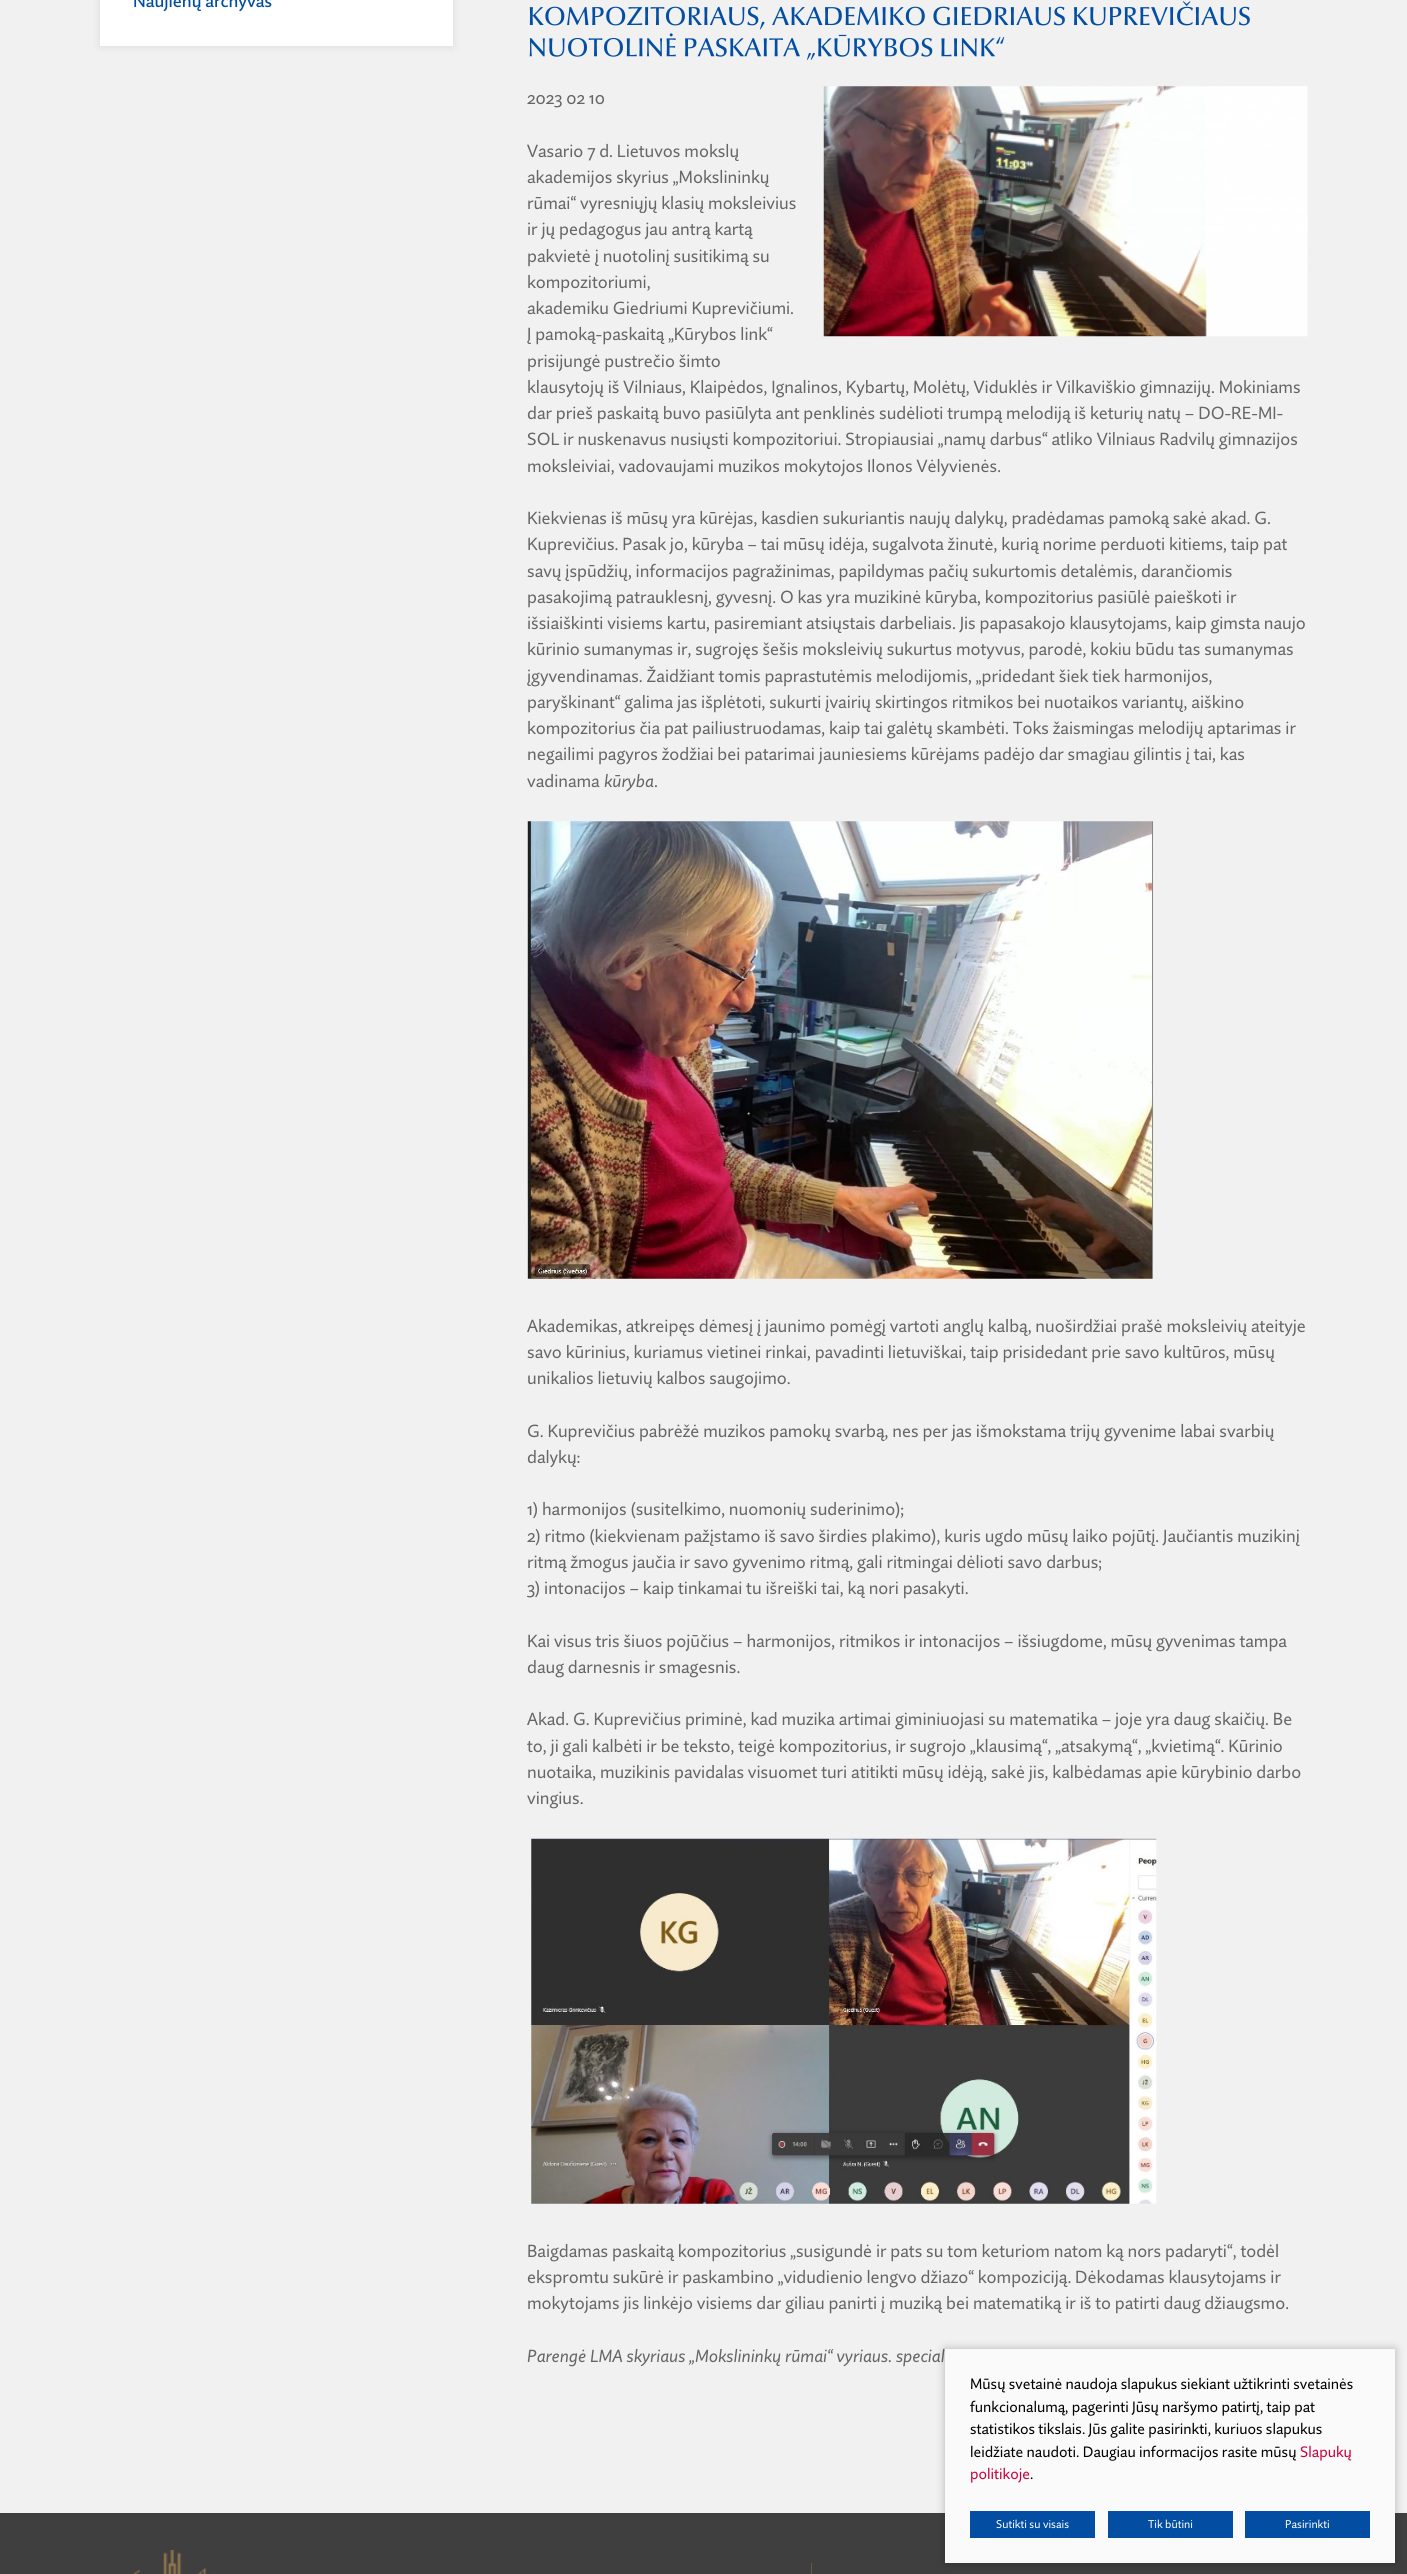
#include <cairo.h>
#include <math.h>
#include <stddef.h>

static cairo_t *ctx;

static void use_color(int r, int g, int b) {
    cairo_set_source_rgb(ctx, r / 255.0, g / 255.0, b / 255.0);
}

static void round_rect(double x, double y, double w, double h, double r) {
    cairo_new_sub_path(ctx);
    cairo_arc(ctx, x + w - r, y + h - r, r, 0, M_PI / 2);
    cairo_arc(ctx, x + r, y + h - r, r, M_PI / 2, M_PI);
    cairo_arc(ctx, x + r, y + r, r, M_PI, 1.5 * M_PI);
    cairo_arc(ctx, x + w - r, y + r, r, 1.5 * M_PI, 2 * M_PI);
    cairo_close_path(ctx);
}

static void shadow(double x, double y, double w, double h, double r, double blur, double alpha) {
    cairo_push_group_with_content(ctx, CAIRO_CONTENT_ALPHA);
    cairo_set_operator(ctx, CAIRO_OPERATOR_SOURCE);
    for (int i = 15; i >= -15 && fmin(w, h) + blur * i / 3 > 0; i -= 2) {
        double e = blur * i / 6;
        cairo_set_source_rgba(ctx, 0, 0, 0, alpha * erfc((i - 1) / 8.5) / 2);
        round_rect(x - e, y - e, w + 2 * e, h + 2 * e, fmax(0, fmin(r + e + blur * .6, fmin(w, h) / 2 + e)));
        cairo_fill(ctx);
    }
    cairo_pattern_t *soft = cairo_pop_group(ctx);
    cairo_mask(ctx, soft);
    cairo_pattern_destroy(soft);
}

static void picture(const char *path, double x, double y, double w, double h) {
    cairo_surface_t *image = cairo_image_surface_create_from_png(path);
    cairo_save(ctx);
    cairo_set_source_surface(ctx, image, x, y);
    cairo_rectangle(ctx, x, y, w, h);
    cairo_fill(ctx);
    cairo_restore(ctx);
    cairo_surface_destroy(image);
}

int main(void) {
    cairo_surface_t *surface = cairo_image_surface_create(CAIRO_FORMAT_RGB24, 1407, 2574);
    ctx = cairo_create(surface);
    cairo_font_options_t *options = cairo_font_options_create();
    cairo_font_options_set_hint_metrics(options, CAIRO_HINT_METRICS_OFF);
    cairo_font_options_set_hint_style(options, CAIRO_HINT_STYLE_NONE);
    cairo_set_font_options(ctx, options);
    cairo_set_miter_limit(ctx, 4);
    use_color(241, 241, 241);
    cairo_paint(ctx);
    use_color(0, 0, 0);
    shadow(100, -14, 353, 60, 0, 4.5, 0.1);
    use_color(255, 255, 255);
    cairo_rectangle(ctx, 100, 0, 353, 46);
    cairo_fill(ctx);
    cairo_select_font_face(ctx, "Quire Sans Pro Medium", CAIRO_FONT_SLANT_NORMAL, CAIRO_FONT_WEIGHT_NORMAL);
    cairo_set_font_size(ctx, 17.5);
    use_color(3, 78, 162);
    cairo_move_to(ctx, 133, 7);
    cairo_show_text(ctx, "Naujienų archyvas");
    picture("img1.png", 529, 1, 721, 29);
    picture("img2.png", 529, 33, 476, 27);
    cairo_select_font_face(ctx, "Quire Sans Pro", CAIRO_FONT_SLANT_NORMAL, CAIRO_FONT_WEIGHT_NORMAL);
    use_color(102, 102, 102);
    cairo_move_to(ctx, 527, 104);
    cairo_show_text(ctx, "2023 02 10");
    picture("img3.png", 823, 86, 485, 251);
    cairo_move_to(ctx, 527, 157);
    cairo_show_text(ctx, "Vasario 7 d. Lietuvos mokslų");
    cairo_move_to(ctx, 527, 183);
    cairo_show_text(ctx, "akademijos skyrius „Mokslininkų");
    cairo_move_to(ctx, 527, 209);
    cairo_show_text(ctx, "rūmai“ vyresniųjų klasių moksleivius");
    cairo_move_to(ctx, 527, 235);
    cairo_show_text(ctx, "ir jų pedagogus jau antrą kartą");
    cairo_move_to(ctx, 527, 262);
    cairo_show_text(ctx, "pakvietė į nuotolinį susitikimą su");
    cairo_move_to(ctx, 527, 288);
    cairo_show_text(ctx, "kompozitoriumi,");
    cairo_move_to(ctx, 527, 314);
    cairo_show_text(ctx, "akademiku Giedriumi Kuprevičiumi.");
    cairo_move_to(ctx, 527, 340);
    cairo_show_text(ctx, "Į pamoką-paskaitą „Kūrybos link“");
    cairo_move_to(ctx, 527, 367);
    cairo_show_text(ctx, "prisijungė pustrečio šimto");
    cairo_move_to(ctx, 527, 393);
    cairo_show_text(ctx, "klausytojų iš Vilniaus, Klaipėdos, Ignalinos, Kybartų, Molėtų, Viduklės ir Vilkaviškio gimnazijų. Mokiniams");
    cairo_move_to(ctx, 527, 419);
    cairo_show_text(ctx, "dar prieš paskaitą buvo pasiūlyta ant penklinės sudėlioti trumpą melodiją iš keturių natų – DO-RE-MI-");
    cairo_move_to(ctx, 527, 445);
    cairo_show_text(ctx, "SOL ir nuskenavus nusiųsti kompozitoriui. Stropiausiai „namų darbus“ atliko Vilniaus Radvilų gimnazijos");
    cairo_move_to(ctx, 527, 472);
    cairo_show_text(ctx, "moksleiviai, vadovaujami muzikos mokytojos Ilonos Vėlyvienės.");
    cairo_move_to(ctx, 527, 524);
    cairo_show_text(ctx, "Kiekvienas iš mūsų yra kūrėjas, kasdien sukuriantis naujų dalykų, pradėdamas pamoką sakė akad. G.");
    cairo_move_to(ctx, 527, 550);
    cairo_show_text(ctx, "Kuprevičius. Pasak jo, kūryba – tai mūsų idėja, sugalvota žinutė, kurią norime perduoti kitiems, taip pat");
    cairo_move_to(ctx, 527, 577);
    cairo_show_text(ctx, "savų įspūdžių, informacijos pagražinimas, papildymas pačių sukurtomis detalėmis, darančiomis");
    cairo_move_to(ctx, 527, 603);
    cairo_show_text(ctx, "pasakojimą patrauklesnį, gyvesnį. O kas yra muzikinė kūryba, kompozitorius pasiūlė paieškoti ir");
    cairo_move_to(ctx, 527, 629);
    cairo_show_text(ctx, "išsiaiškinti visiems kartu, pasiremiant atsiųstais darbeliais. Jis papasakojo klausytojams, kaip gimsta naujo");
    cairo_move_to(ctx, 527, 655);
    cairo_show_text(ctx, "kūrinio sumanymas ir, sugrojęs šešis moksleivių sukurtus motyvus, parodė, kokiu būdu tas sumanymas");
    cairo_move_to(ctx, 527, 682);
    cairo_show_text(ctx, "įgyvendinamas. Žaidžiant tomis paprastutėmis melodijomis, „pridedant šiek tiek harmonijos,");
    cairo_move_to(ctx, 527, 708);
    cairo_show_text(ctx, "paryškinant“ galima jas išplėtoti, sukurti įvairių skirtingos ritmikos bei nuotaikos variantų, aiškino");
    cairo_move_to(ctx, 527, 734);
    cairo_show_text(ctx, "kompozitorius čia pat pailiustruodamas, kaip tai galėtų skambėti. Toks žaismingas melodijų aptarimas ir");
    cairo_move_to(ctx, 527, 760);
    cairo_show_text(ctx, "negailimi pagyros žodžiai bei patarimai jauniesiems kūrėjams padėjo dar smagiau gilintis į tai, kas");
    cairo_move_to(ctx, 527, 787);
    cairo_show_text(ctx, "vadinama");
    cairo_select_font_face(ctx, "Quire Sans Pro", CAIRO_FONT_SLANT_ITALIC, CAIRO_FONT_WEIGHT_NORMAL);
    cairo_move_to(ctx, 604, 787);
    cairo_show_text(ctx, "kūryba");
    cairo_select_font_face(ctx, "Quire Sans Pro", CAIRO_FONT_SLANT_NORMAL, CAIRO_FONT_WEIGHT_NORMAL);
    cairo_move_to(ctx, 654, 787);
    cairo_show_text(ctx, ".");
    picture("img4.png", 527, 821, 626, 458);
    cairo_move_to(ctx, 527, 1332);
    cairo_show_text(ctx, "Akademikas, atkreipęs dėmesį į jaunimo pomėgį vartoti anglų kalbą, nuoširdžiai prašė moksleivių ateityje");
    cairo_move_to(ctx, 527, 1358);
    cairo_show_text(ctx, "savo kūrinius, kuriamus vietinei rinkai, pavadinti lietuviškai, taip prisidedant prie savo kultūros, mūsų");
    cairo_move_to(ctx, 527, 1384);
    cairo_show_text(ctx, "unikalios lietuvių kalbos saugojimo.");
    cairo_move_to(ctx, 527, 1437);
    cairo_show_text(ctx, "G. Kuprevičius pabrėžė muzikos pamokų svarbą, nes per jas išmokstama trijų gyvenime labai svarbių");
    cairo_move_to(ctx, 527, 1463);
    cairo_show_text(ctx, "dalykų:");
    cairo_move_to(ctx, 527, 1515);
    cairo_show_text(ctx, "1) harmonijos (susitelkimo, nuomonių suderinimo);");
    cairo_move_to(ctx, 527, 1542);
    cairo_show_text(ctx, "2) ritmo (kiekvienam pažįstamo iš savo širdies plakimo), kuris ugdo mūsų laiko pojūtį. Jaučiantis muzikinį");
    cairo_move_to(ctx, 527, 1568);
    cairo_show_text(ctx, "ritmą žmogus jaučia ir savo gyvenimo ritmą, gali ritmingai dėlioti savo darbus;");
    cairo_move_to(ctx, 527, 1594);
    cairo_show_text(ctx, "3) intonacijos – kaip tinkamai tu išreiški tai, ką nori pasakyti.");
    cairo_move_to(ctx, 527, 1647);
    cairo_show_text(ctx, "Kai visus tris šiuos pojūčius – harmonijos, ritmikos ir intonacijos – išsiugdome, mūsų gyvenimas tampa");
    cairo_move_to(ctx, 527, 1673);
    cairo_show_text(ctx, "daug darnesnis ir smagesnis.");
    cairo_move_to(ctx, 527, 1725);
    cairo_show_text(ctx, "Akad. G. Kuprevičius priminė, kad muzika artimai giminiuojasi su matematika – joje yra daug skaičių. Be");
    cairo_move_to(ctx, 527, 1752);
    cairo_show_text(ctx, "to, ji gali kalbėti ir be teksto, teigė kompozitorius, ir sugrojo „klausimą“, „atsakymą“, „kvietimą“. Kūrinio");
    cairo_move_to(ctx, 527, 1778);
    cairo_show_text(ctx, "nuotaika, muzikinis pavidalas visuomet turi atitikti mūsų idėją, sakė jis, kalbėdamas apie kūrybinio darbo");
    cairo_move_to(ctx, 527, 1804);
    cairo_show_text(ctx, "vingius.");
    picture("img5.png", 531, 1838, 626, 366);
    cairo_move_to(ctx, 527, 2257);
    cairo_show_text(ctx, "Baigdamas paskaitą kompozitorius „susigundė ir pats su tom keturiom natom ką nors padaryti“, todėl");
    cairo_move_to(ctx, 527, 2283);
    cairo_show_text(ctx, "ekspromtu sukūrė ir paskambino „vidudienio lengvo džiazo“ kompoziciją. Dėkodamas klausytojams ir");
    cairo_move_to(ctx, 527, 2309);
    cairo_show_text(ctx, "mokytojams jis linkėjo visiems dar giliau panirti į muziką bei matematiką ir iš to patirti daug džiaugsmo.");
    cairo_select_font_face(ctx, "Quire Sans Pro", CAIRO_FONT_SLANT_ITALIC, CAIRO_FONT_WEIGHT_NORMAL);
    cairo_move_to(ctx, 527, 2362);
    cairo_show_text(ctx, "Parengė LMA skyriaus „Mokslininkų rūmai“ vyriaus. special");
    use_color(63, 63, 63);
    cairo_rectangle(ctx, 0, 2513, 1407, 61);
    cairo_fill(ctx);
    use_color(0, 0, 0);
    shadow(945, 2349, 450, 214, 0, 4.5, 0.25);
    use_color(250, 250, 250);
    cairo_rectangle(ctx, 945, 2349, 450, 214);
    cairo_fill(ctx);
    cairo_select_font_face(ctx, "Quire Sans Pro", CAIRO_FONT_SLANT_NORMAL, CAIRO_FONT_WEIGHT_NORMAL);
    cairo_set_font_size(ctx, 15);
    use_color(0, 0, 0);
    cairo_move_to(ctx, 970, 2389);
    cairo_show_text(ctx, "Mūsų svetainė naudoja slapukus siekiant užtikrinti svetainės");
    cairo_move_to(ctx, 970, 2412);
    cairo_show_text(ctx, "funkcionalumą, pagerinti Jūsų naršymo patirtį, taip pat");
    cairo_move_to(ctx, 970, 2434);
    cairo_show_text(ctx, "statistikos tikslais. Jūs galite pasirinkti, kuriuos slapukus");
    cairo_move_to(ctx, 970, 2457);
    cairo_show_text(ctx, "leidžiate naudoti. Daugiau informacijos rasite mūsų");
    use_color(203, 0, 58);
    cairo_move_to(ctx, 1300, 2457);
    cairo_show_text(ctx, "Slapukų");
    cairo_move_to(ctx, 970, 2479);
    cairo_show_text(ctx, "politikoje");
    use_color(0, 0, 0);
    cairo_move_to(ctx, 1030, 2479);
    cairo_show_text(ctx, ".");
    use_color(3, 78, 162);
    cairo_rectangle(ctx, 970, 2511, 125, 27);
    cairo_fill(ctx);
    cairo_set_font_size(ctx, 11.25);
    use_color(255, 255, 255);
    cairo_move_to(ctx, 996, 2528);
    cairo_show_text(ctx, "Sutikti su visais");
    use_color(3, 78, 162);
    cairo_rectangle(ctx, 1108, 2511, 125, 27);
    cairo_fill(ctx);
    use_color(255, 255, 255);
    cairo_move_to(ctx, 1148, 2528);
    cairo_show_text(ctx, "Tik būtini");
    use_color(3, 78, 162);
    cairo_rectangle(ctx, 1245, 2511, 125, 27);
    cairo_fill(ctx);
    use_color(255, 255, 255);
    cairo_move_to(ctx, 1285, 2528);
    cairo_show_text(ctx, "Pasirinkti");
    picture("img6.png", 133, 2550, 83, 24);
    use_color(103, 90, 70);
    cairo_rectangle(ctx, 811, 2563, 1, 11);
    cairo_fill(ctx);
    cairo_surface_write_to_png(surface, "result.png");
    cairo_font_options_destroy(options);
    cairo_destroy(ctx);
    cairo_surface_destroy(surface);
    return 0;
}
